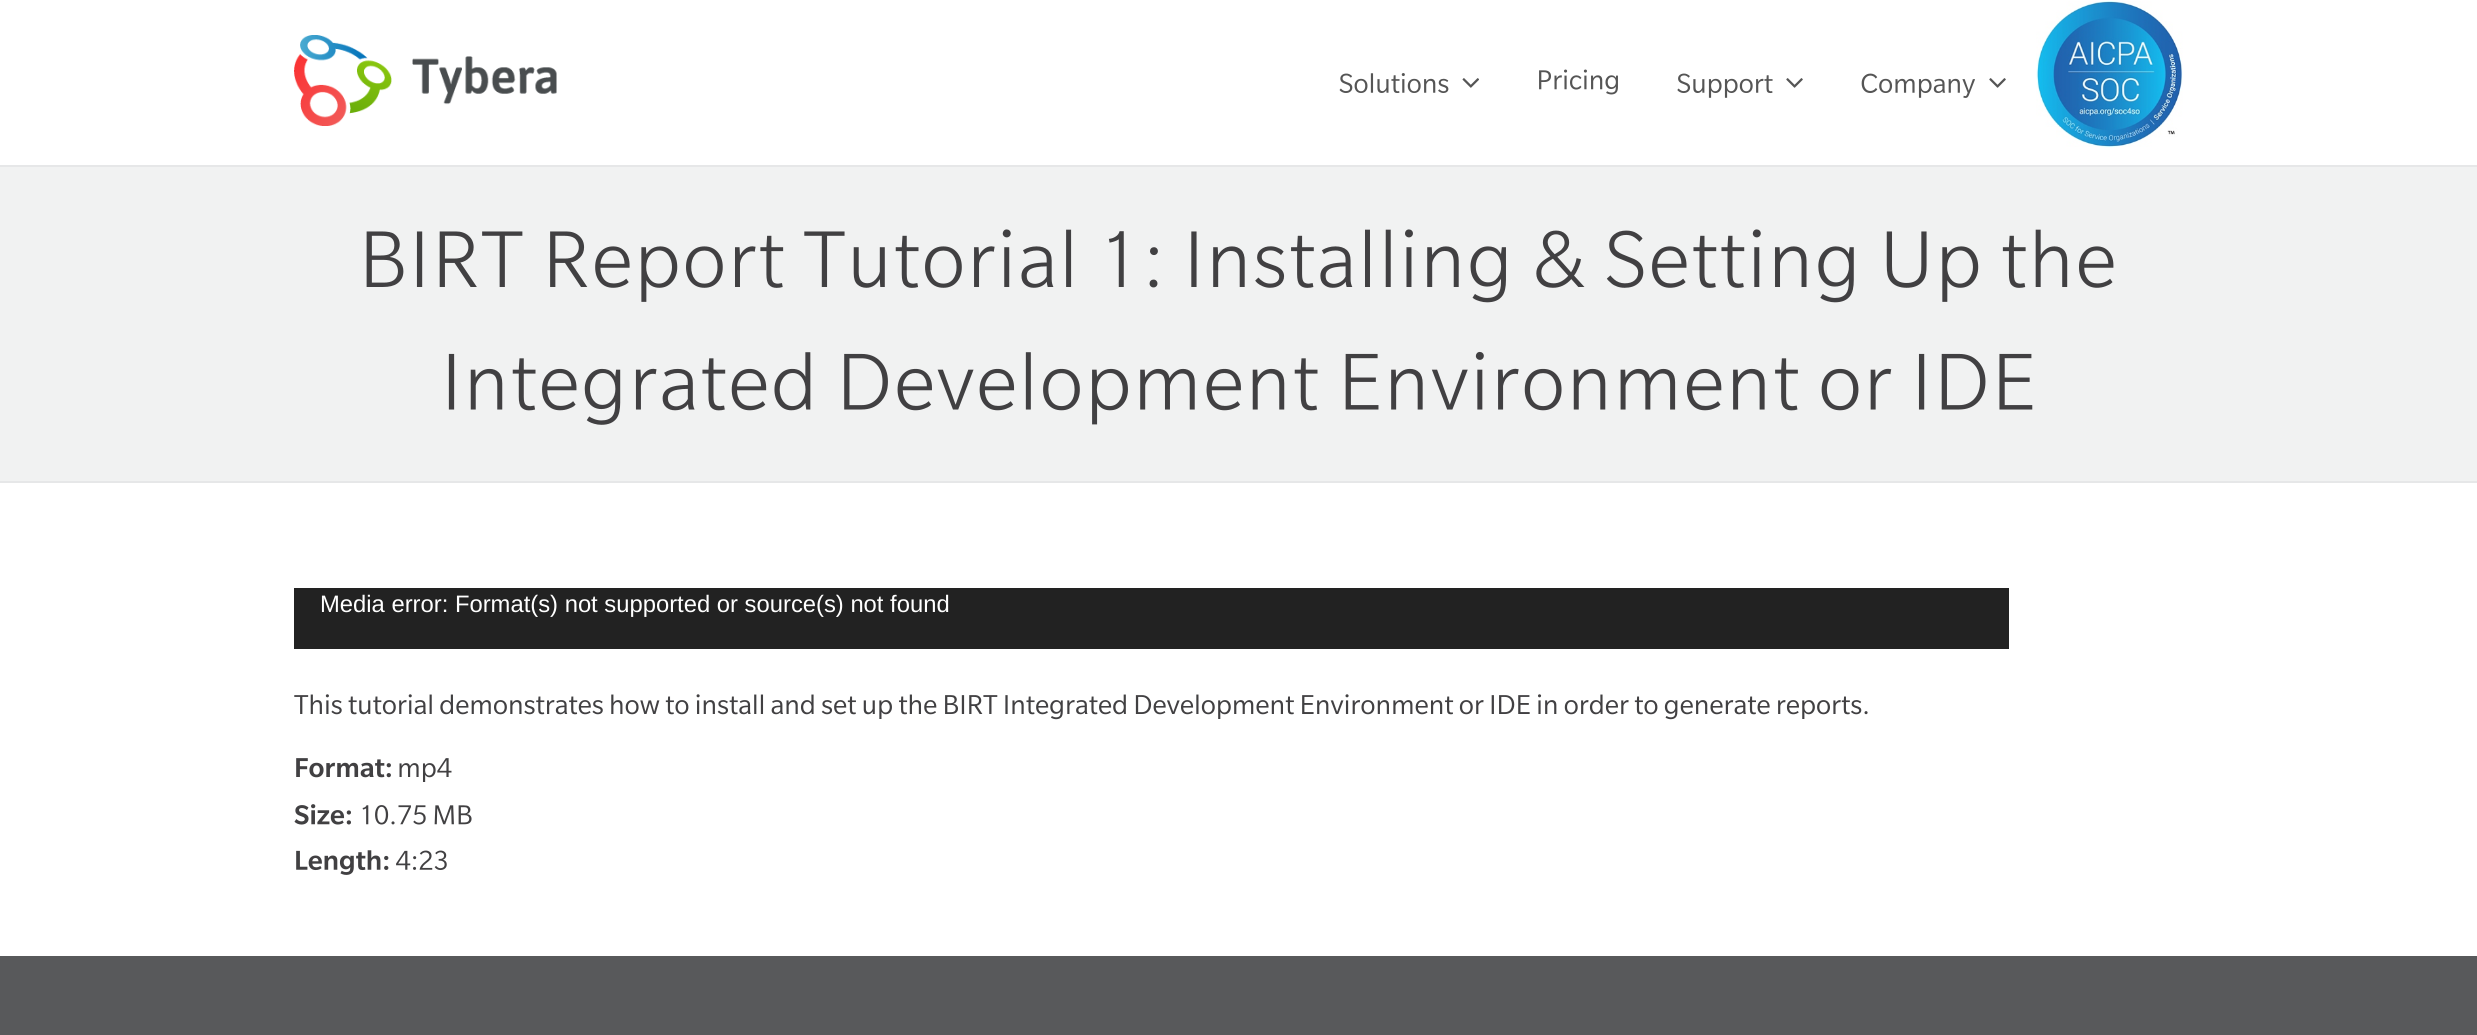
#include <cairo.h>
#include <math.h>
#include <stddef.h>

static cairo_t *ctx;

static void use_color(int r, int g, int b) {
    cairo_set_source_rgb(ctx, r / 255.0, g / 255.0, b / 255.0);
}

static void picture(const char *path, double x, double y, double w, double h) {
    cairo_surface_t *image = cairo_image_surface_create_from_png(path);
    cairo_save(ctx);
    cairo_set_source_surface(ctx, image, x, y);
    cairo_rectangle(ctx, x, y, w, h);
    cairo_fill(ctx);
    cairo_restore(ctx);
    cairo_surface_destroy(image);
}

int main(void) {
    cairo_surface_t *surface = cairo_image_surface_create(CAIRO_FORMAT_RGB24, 2477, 1035);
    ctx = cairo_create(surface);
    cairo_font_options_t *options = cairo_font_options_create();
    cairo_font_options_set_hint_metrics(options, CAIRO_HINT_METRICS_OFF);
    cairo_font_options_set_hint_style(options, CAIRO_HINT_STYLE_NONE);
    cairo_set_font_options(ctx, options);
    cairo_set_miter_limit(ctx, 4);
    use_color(255, 255, 255);
    cairo_paint(ctx);
    picture("img1.png", 294, 35, 263, 91);
    picture("img2.png", 1339, 73, 110, 20);
    picture("img3.png", 1462, 78, 17, 10);
    picture("img4.png", 1539, 69, 79, 26);
    picture("img5.png", 1677, 73, 96, 25);
    picture("img6.png", 1786, 78, 17, 10);
    picture("img7.png", 1861, 73, 114, 25);
    picture("img6.png", 1989, 78, 17, 10);
    picture("img8.png", 2036, 1, 147, 147);
    use_color(241, 242, 242);
    cairo_rectangle(ctx, 0, 167, 2477, 314);
    cairo_fill(ctx);
    use_color(230, 231, 232);
    cairo_rectangle(ctx, 0, 165, 2477, 2);
    cairo_fill(ctx);
    cairo_rectangle(ctx, 0, 481, 2477, 2);
    cairo_fill(ctx);
    picture("img9.png", 366, 229, 1748, 74);
    picture("img10.png", 448, 351, 1585, 74);
    use_color(34, 34, 34);
    cairo_rectangle(ctx, 294, 588, 1715, 61);
    cairo_fill(ctx);
    cairo_select_font_face(ctx, "Liberation Sans", CAIRO_FONT_SLANT_NORMAL, CAIRO_FONT_WEIGHT_NORMAL);
    cairo_set_font_size(ctx, 23.8);
    use_color(255, 255, 255);
    cairo_move_to(ctx, 320, 612);
    cairo_show_text(ctx, "Media error: Format(s) not supported or source(s) not found");
    picture("img11.png", 294, 694, 1574, 26);
    picture("img12.png", 296, 758, 95, 20);
    picture("img13.png", 399, 758, 53, 24);
    picture("img14.png", 294, 804, 57, 21);
    picture("img15.png", 362, 805, 110, 20);
    picture("img16.png", 296, 850, 93, 25);
    picture("img17.png", 396, 850, 51, 20);
    use_color(88, 89, 91);
    cairo_rectangle(ctx, 0, 956, 2477, 79);
    cairo_fill(ctx);
    cairo_surface_write_to_png(surface, "result.png");
    cairo_font_options_destroy(options);
    cairo_destroy(ctx);
    cairo_surface_destroy(surface);
    return 0;
}
